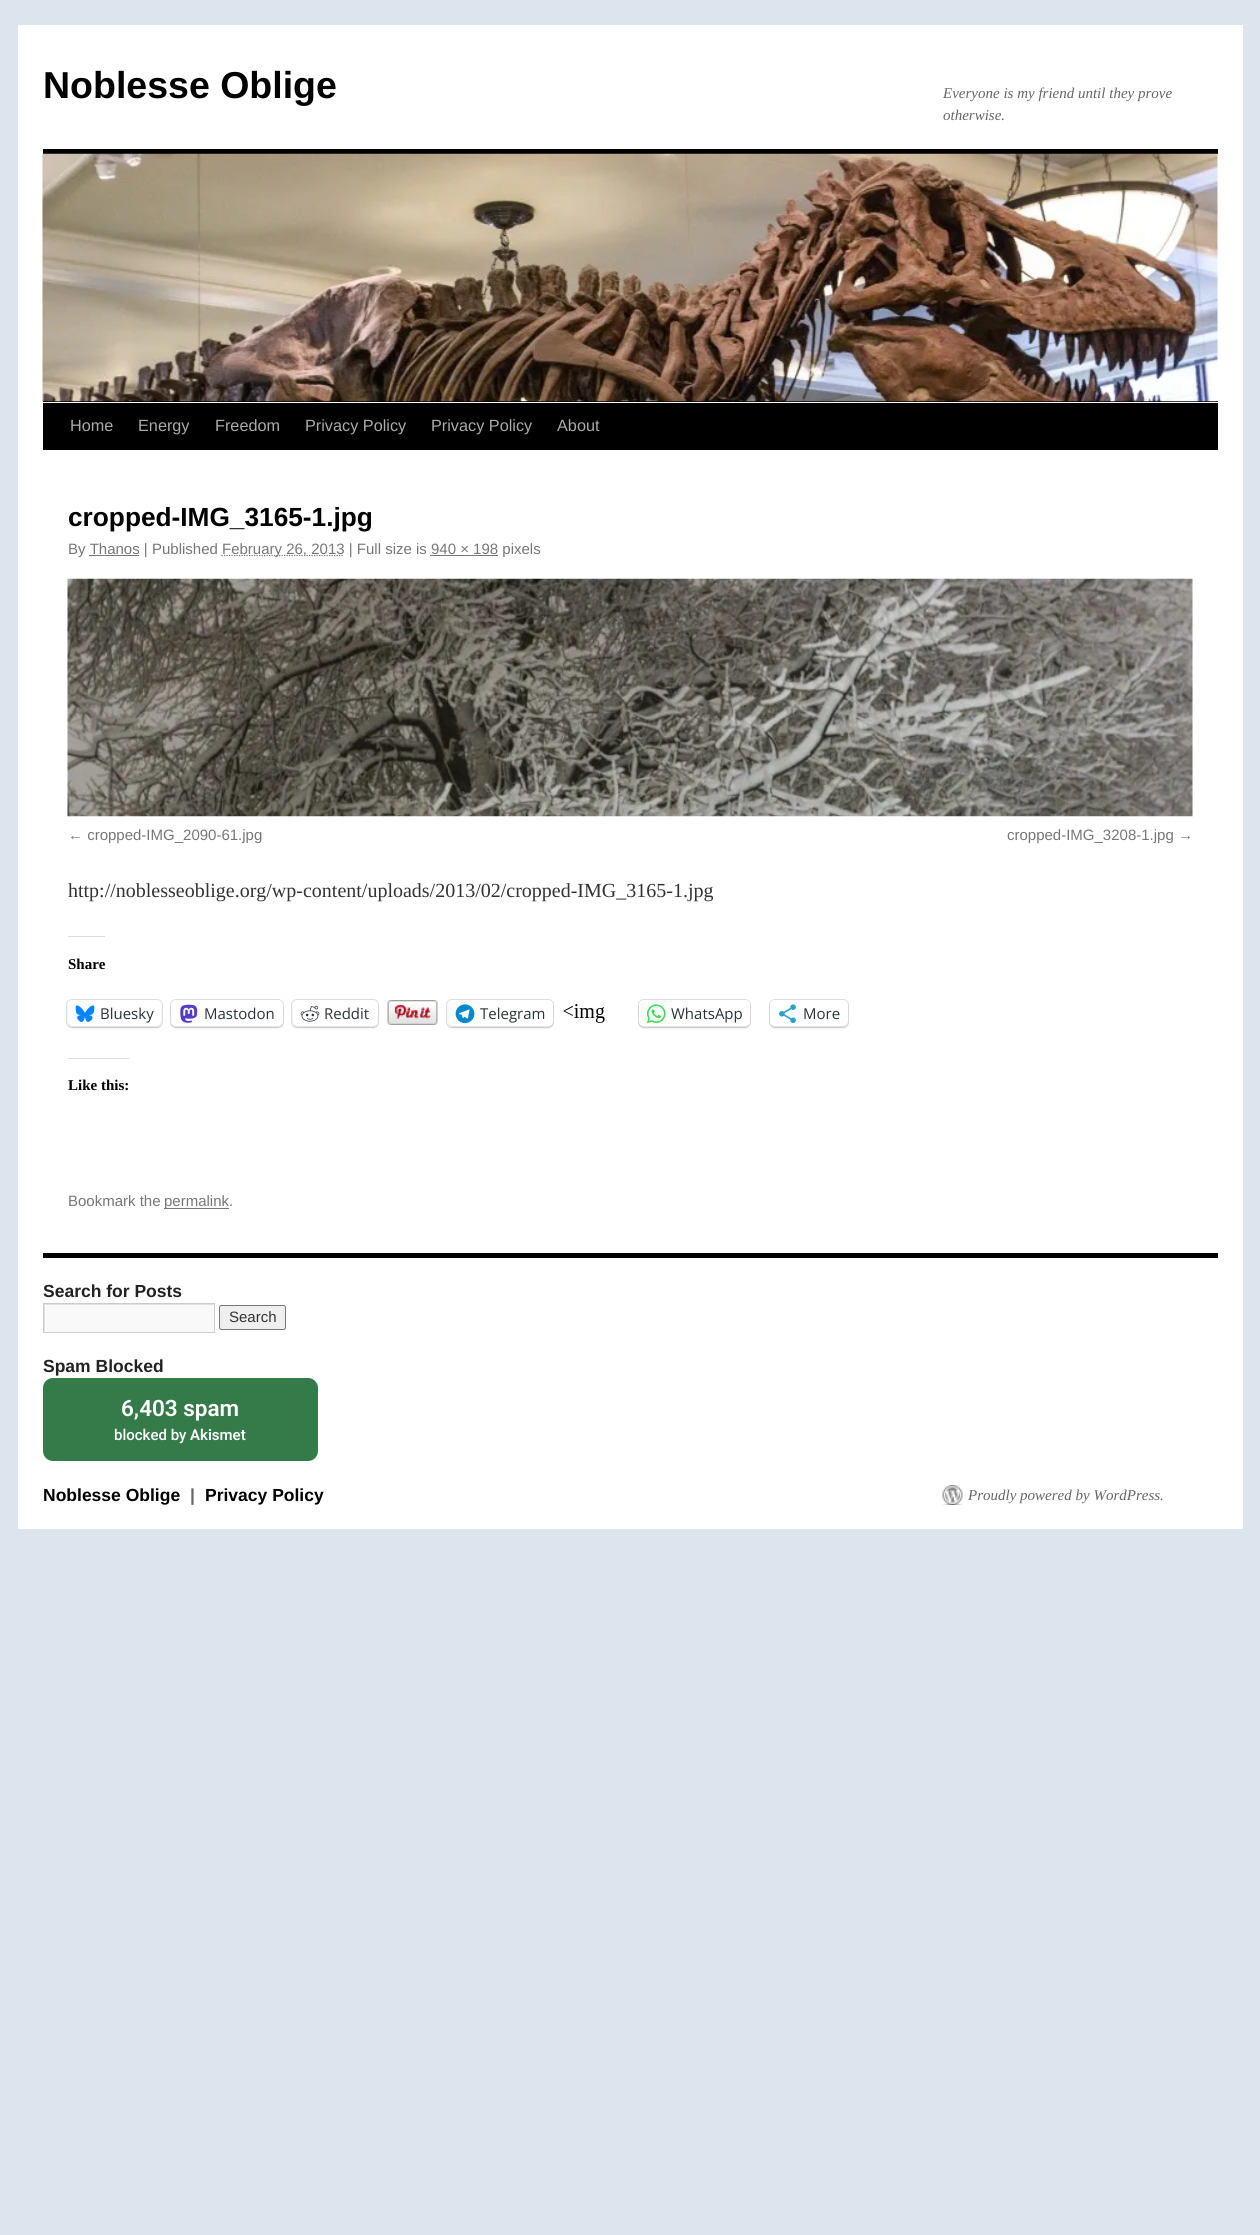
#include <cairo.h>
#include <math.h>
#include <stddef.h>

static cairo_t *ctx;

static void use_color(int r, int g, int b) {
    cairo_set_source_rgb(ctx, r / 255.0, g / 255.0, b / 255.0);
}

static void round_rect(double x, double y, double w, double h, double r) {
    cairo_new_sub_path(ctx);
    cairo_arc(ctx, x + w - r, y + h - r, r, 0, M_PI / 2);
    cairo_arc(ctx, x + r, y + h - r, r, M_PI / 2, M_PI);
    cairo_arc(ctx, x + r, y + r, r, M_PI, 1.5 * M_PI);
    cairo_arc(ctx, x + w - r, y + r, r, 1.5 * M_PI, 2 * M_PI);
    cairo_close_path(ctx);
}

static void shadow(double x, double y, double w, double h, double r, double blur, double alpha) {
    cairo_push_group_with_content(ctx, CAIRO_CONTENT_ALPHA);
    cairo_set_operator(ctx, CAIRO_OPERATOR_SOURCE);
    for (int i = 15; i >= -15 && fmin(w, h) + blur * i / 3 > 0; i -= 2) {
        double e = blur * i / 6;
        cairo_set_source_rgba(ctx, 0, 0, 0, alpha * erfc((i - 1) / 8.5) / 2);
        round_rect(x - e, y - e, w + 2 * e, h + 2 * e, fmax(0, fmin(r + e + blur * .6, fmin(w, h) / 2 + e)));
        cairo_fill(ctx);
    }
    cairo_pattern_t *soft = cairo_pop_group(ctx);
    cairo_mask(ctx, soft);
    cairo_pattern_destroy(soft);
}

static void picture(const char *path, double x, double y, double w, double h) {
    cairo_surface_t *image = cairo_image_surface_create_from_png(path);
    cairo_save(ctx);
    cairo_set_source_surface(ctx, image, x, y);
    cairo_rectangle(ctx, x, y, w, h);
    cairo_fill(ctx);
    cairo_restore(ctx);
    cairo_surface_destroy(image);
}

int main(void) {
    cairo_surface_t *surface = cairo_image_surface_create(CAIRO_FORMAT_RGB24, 1260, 2235);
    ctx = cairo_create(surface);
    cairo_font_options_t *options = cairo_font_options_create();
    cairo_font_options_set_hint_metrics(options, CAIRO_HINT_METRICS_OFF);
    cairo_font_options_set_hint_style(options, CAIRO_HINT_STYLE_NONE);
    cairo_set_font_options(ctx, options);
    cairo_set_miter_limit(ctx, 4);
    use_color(220, 228, 237);
    cairo_paint(ctx);
    use_color(255, 255, 255);
    cairo_rectangle(ctx, 18, 25, 1225, 1504);
    cairo_fill(ctx);
    cairo_select_font_face(ctx, "Liberation Sans", CAIRO_FONT_SLANT_NORMAL, CAIRO_FONT_WEIGHT_BOLD);
    cairo_set_font_size(ctx, 37.5);
    use_color(0, 0, 0);
    cairo_move_to(ctx, 43, 98);
    cairo_show_text(ctx, "Noblesse Oblige");
    cairo_select_font_face(ctx, "Liberation Serif", CAIRO_FONT_SLANT_ITALIC, CAIRO_FONT_WEIGHT_NORMAL);
    cairo_set_font_size(ctx, 15);
    use_color(102, 102, 102);
    cairo_move_to(ctx, 943, 98);
    cairo_show_text(ctx, "Everyone is my friend until they prove");
    cairo_move_to(ctx, 943, 120);
    cairo_show_text(ctx, "otherwise.");
    use_color(0, 0, 0);
    cairo_rectangle(ctx, 43, 149, 1175, 5);
    cairo_fill(ctx);
    cairo_rectangle(ctx, 43, 401, 1175, 1);
    cairo_fill(ctx);
    picture("img1.png", 42, 153, 1176, 249);
    cairo_rectangle(ctx, 43, 403, 1175, 47);
    cairo_fill(ctx);
    cairo_select_font_face(ctx, "Liberation Sans", CAIRO_FONT_SLANT_NORMAL, CAIRO_FONT_WEIGHT_NORMAL);
    cairo_set_font_size(ctx, 16.25);
    use_color(170, 170, 170);
    cairo_move_to(ctx, 70, 431);
    cairo_show_text(ctx, "Home");
    cairo_move_to(ctx, 138, 431);
    cairo_show_text(ctx, "Energy");
    cairo_move_to(ctx, 215, 431);
    cairo_show_text(ctx, "Freedom");
    cairo_move_to(ctx, 305, 431);
    cairo_show_text(ctx, "Privacy Policy");
    cairo_move_to(ctx, 431, 431);
    cairo_show_text(ctx, "Privacy Policy");
    cairo_move_to(ctx, 557, 431);
    cairo_show_text(ctx, "About");
    cairo_select_font_face(ctx, "Liberation Sans", CAIRO_FONT_SLANT_NORMAL, CAIRO_FONT_WEIGHT_BOLD);
    cairo_set_font_size(ctx, 26.25);
    use_color(0, 0, 0);
    cairo_move_to(ctx, 68, 526);
    cairo_show_text(ctx, "cropped-IMG_3165-1.jpg");
    cairo_select_font_face(ctx, "Liberation Sans", CAIRO_FONT_SLANT_NORMAL, CAIRO_FONT_WEIGHT_NORMAL);
    cairo_set_font_size(ctx, 15);
    use_color(119, 119, 119);
    cairo_move_to(ctx, 68, 554);
    cairo_show_text(ctx, "By Thanos | Published");
    cairo_new_path(ctx);
    cairo_move_to(ctx, 221.5, 555.5);
    cairo_line_to(ctx, 344, 555.5);
    cairo_set_line_width(ctx, 1.2);
    cairo_set_dash(ctx, (double[]){1.25, 1.25}, 2, 0);
    cairo_stroke(ctx);
    cairo_move_to(ctx, 222, 554);
    cairo_show_text(ctx, "February 26, 2013 | Full size is 940 × 198 pixels");
    cairo_rectangle(ctx, 89, 555, 50, 1);
    cairo_fill(ctx);
    cairo_rectangle(ctx, 430, 555, 68, 1);
    cairo_fill(ctx);
    picture("img2.png", 67, 578, 1126, 239);
    cairo_move_to(ctx, 68, 840);
    cairo_show_text(ctx, "← cropped-IMG_2090-61.jpg");
    cairo_move_to(ctx, 1007, 840);
    cairo_show_text(ctx, "cropped-IMG_3208-1.jpg →");
    cairo_select_font_face(ctx, "Liberation Serif", CAIRO_FONT_SLANT_NORMAL, CAIRO_FONT_WEIGHT_NORMAL);
    cairo_set_font_size(ctx, 20);
    use_color(51, 51, 51);
    cairo_move_to(ctx, 68, 897);
    cairo_show_text(ctx, "http://noblesseoblige.org/wp-content/uploads/2013/02/cropped-IMG_3165-1.jpg");
    use_color(220, 220, 222);
    cairo_rectangle(ctx, 68, 936, 37, 1);
    cairo_fill(ctx);
    cairo_select_font_face(ctx, "Liberation Serif", CAIRO_FONT_SLANT_NORMAL, CAIRO_FONT_WEIGHT_BOLD);
    cairo_set_font_size(ctx, 15);
    use_color(0, 0, 0);
    cairo_move_to(ctx, 68, 969);
    cairo_show_text(ctx, "Share");
    round_rect(66.5, 999.5, 96, 28, 5.5);
    use_color(224, 224, 224);
    cairo_set_line_width(ctx, 1);
    cairo_set_dash(ctx, NULL, 0, 0);
    cairo_stroke(ctx);
    use_color(0, 0, 0);
    shadow(68, 1001, 93, 27, 5, 1, 0.12);
    use_color(255, 255, 255);
    round_rect(68, 1000, 93, 26, 5);
    cairo_fill(ctx);
    picture("img3.png", 75, 1005, 20, 17);
    cairo_select_font_face(ctx, "Open Sans", CAIRO_FONT_SLANT_NORMAL, CAIRO_FONT_WEIGHT_NORMAL);
    use_color(44, 51, 56);
    cairo_move_to(ctx, 100, 1019);
    cairo_show_text(ctx, "Bluesky");
    round_rect(170.5, 999.5, 113, 28, 5.5);
    use_color(224, 224, 224);
    cairo_stroke(ctx);
    use_color(0, 0, 0);
    shadow(171, 1001, 112, 27, 5, 1, 0.12);
    use_color(255, 255, 255);
    round_rect(171, 1000, 112, 26, 5);
    cairo_fill(ctx);
    picture("img4.png", 180, 1004, 18, 19);
    use_color(44, 51, 56);
    cairo_move_to(ctx, 204, 1019);
    cairo_show_text(ctx, "Mastodon");
    round_rect(291.5, 999.5, 87, 28, 5.5);
    use_color(224, 224, 224);
    cairo_stroke(ctx);
    use_color(0, 0, 0);
    shadow(293, 1001, 85, 27, 5, 1, 0.12);
    use_color(255, 255, 255);
    round_rect(293, 1000, 85, 26, 5);
    cairo_fill(ctx);
    picture("img5.png", 300, 1005, 20, 17);
    use_color(44, 51, 56);
    cairo_move_to(ctx, 324, 1019);
    cairo_show_text(ctx, "Reddit");
    picture("img6.png", 387, 1000, 51, 25);
    round_rect(446.5, 999.5, 107, 28, 5.5);
    use_color(224, 224, 224);
    cairo_stroke(ctx);
    use_color(0, 0, 0);
    shadow(448, 1001, 105, 27, 5, 1, 0.12);
    use_color(255, 255, 255);
    round_rect(448, 1000, 105, 26, 5);
    cairo_fill(ctx);
    picture("img7.png", 455, 1004, 20, 20);
    use_color(44, 51, 56);
    cairo_move_to(ctx, 480, 1019);
    cairo_show_text(ctx, "Telegram");
    picture("img8.png", 563, 1004, 42, 19);
    round_rect(638.5, 999.5, 112, 28, 5.5);
    use_color(224, 224, 224);
    cairo_stroke(ctx);
    use_color(0, 0, 0);
    shadow(639, 1001, 111, 27, 5, 1, 0.12);
    use_color(255, 255, 255);
    round_rect(639, 1000, 111, 26, 5);
    cairo_fill(ctx);
    picture("img9.png", 647, 1004, 19, 19);
    use_color(44, 51, 56);
    cairo_move_to(ctx, 671, 1019);
    cairo_show_text(ctx, "WhatsApp");
    round_rect(769.5, 999.5, 79, 28, 5.5);
    use_color(224, 224, 224);
    cairo_stroke(ctx);
    use_color(0, 0, 0);
    shadow(770, 1001, 78, 27, 5, 1, 0.12);
    use_color(255, 255, 255);
    round_rect(770, 1000, 78, 26, 5);
    cairo_fill(ctx);
    picture("img10.png", 779, 1004, 17, 20);
    use_color(44, 51, 56);
    cairo_move_to(ctx, 803, 1019);
    cairo_show_text(ctx, "More");
    use_color(220, 220, 222);
    cairo_rectangle(ctx, 68, 1058, 61, 1);
    cairo_fill(ctx);
    cairo_select_font_face(ctx, "Liberation Serif", CAIRO_FONT_SLANT_NORMAL, CAIRO_FONT_WEIGHT_BOLD);
    use_color(0, 0, 0);
    cairo_move_to(ctx, 68, 1090);
    cairo_show_text(ctx, "Like this:");
    cairo_select_font_face(ctx, "Liberation Sans", CAIRO_FONT_SLANT_NORMAL, CAIRO_FONT_WEIGHT_NORMAL);
    use_color(119, 119, 119);
    cairo_move_to(ctx, 68, 1206);
    cairo_show_text(ctx, "Bookmark the");
    cairo_rectangle(ctx, 164, 1208, 65, 1);
    cairo_fill(ctx);
    cairo_move_to(ctx, 164, 1206);
    cairo_show_text(ctx, "permalink.");
    use_color(0, 0, 0);
    cairo_rectangle(ctx, 43, 1253, 1175, 5);
    cairo_fill(ctx);
    cairo_select_font_face(ctx, "Liberation Sans", CAIRO_FONT_SLANT_NORMAL, CAIRO_FONT_WEIGHT_BOLD);
    cairo_set_font_size(ctx, 17.5);
    use_color(34, 34, 34);
    cairo_move_to(ctx, 43, 1297);
    cairo_show_text(ctx, "Search for Posts");
    use_color(249, 249, 249);
    cairo_rectangle(ctx, 44, 1305, 170, 27);
    cairo_fill(ctx);
    cairo_save(ctx);
    cairo_rectangle(ctx, 44, 1304, 170, 27);
    cairo_clip(ctx);
    use_color(224, 224, 224);
    cairo_set_fill_rule(ctx, CAIRO_FILL_RULE_EVEN_ODD);
    cairo_new_path(ctx);
    cairo_move_to(ctx, -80, 1180);
    cairo_line_to(ctx, 338, 1180);
    cairo_line_to(ctx, 338, 1455);
    cairo_line_to(ctx, -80, 1455);
    cairo_close_path(ctx);
    cairo_move_to(ctx, 45, 1305);
    cairo_line_to(ctx, 215, 1305);
    cairo_line_to(ctx, 215, 1332);
    cairo_line_to(ctx, 45, 1332);
    cairo_close_path(ctx);
    cairo_fill(ctx);
    cairo_restore(ctx);
    cairo_rectangle(ctx, 43.5, 1303.5, 171, 29);
    use_color(204, 204, 204);
    cairo_stroke(ctx);
    use_color(239, 239, 239);
    round_rect(219.5, 1305.5, 66, 24, 2);
    cairo_fill_preserve(ctx);
    use_color(118, 118, 118);
    cairo_stroke(ctx);
    cairo_select_font_face(ctx, "Liberation Sans", CAIRO_FONT_SLANT_NORMAL, CAIRO_FONT_WEIGHT_NORMAL);
    cairo_set_font_size(ctx, 15);
    use_color(51, 51, 51);
    cairo_move_to(ctx, 229, 1322);
    cairo_show_text(ctx, "Search");
    cairo_select_font_face(ctx, "Liberation Sans", CAIRO_FONT_SLANT_NORMAL, CAIRO_FONT_WEIGHT_BOLD);
    cairo_set_font_size(ctx, 17.5);
    use_color(34, 34, 34);
    cairo_move_to(ctx, 43, 1372);
    cairo_show_text(ctx, "Spam Blocked");
    use_color(53, 123, 73);
    round_rect(43, 1378, 275, 83, 10);
    cairo_fill(ctx);
    cairo_select_font_face(ctx, "Roboto SemiBold", CAIRO_FONT_SLANT_NORMAL, CAIRO_FONT_WEIGHT_NORMAL);
    cairo_set_font_size(ctx, 22.5);
    use_color(255, 255, 255);
    cairo_move_to(ctx, 121, 1416);
    cairo_show_text(ctx, "6,403 spam");
    cairo_select_font_face(ctx, "Roboto Medium", CAIRO_FONT_SLANT_NORMAL, CAIRO_FONT_WEIGHT_NORMAL);
    cairo_set_font_size(ctx, 15);
    cairo_move_to(ctx, 114, 1440);
    cairo_show_text(ctx, "blocked by");
    cairo_select_font_face(ctx, "Roboto SemiBold", CAIRO_FONT_SLANT_NORMAL, CAIRO_FONT_WEIGHT_NORMAL);
    cairo_move_to(ctx, 190, 1440);
    cairo_show_text(ctx, "Akismet");
    cairo_select_font_face(ctx, "Liberation Sans", CAIRO_FONT_SLANT_NORMAL, CAIRO_FONT_WEIGHT_BOLD);
    cairo_set_font_size(ctx, 17.5);
    use_color(0, 0, 0);
    cairo_move_to(ctx, 43, 1501);
    cairo_show_text(ctx, "Noblesse Oblige");
    use_color(102, 102, 102);
    cairo_move_to(ctx, 190, 1501);
    cairo_show_text(ctx, "|");
    use_color(0, 0, 0);
    cairo_move_to(ctx, 205, 1501);
    cairo_show_text(ctx, "Privacy Policy");
    picture("img11.png", 942, 1485, 21, 20);
    cairo_select_font_face(ctx, "Liberation Serif", CAIRO_FONT_SLANT_ITALIC, CAIRO_FONT_WEIGHT_NORMAL);
    cairo_set_font_size(ctx, 15);
    use_color(102, 102, 102);
    cairo_move_to(ctx, 968, 1500);
    cairo_show_text(ctx, "Proudly powered by WordPress.");
    cairo_surface_write_to_png(surface, "result.png");
    cairo_font_options_destroy(options);
    cairo_destroy(ctx);
    cairo_surface_destroy(surface);
    return 0;
}
